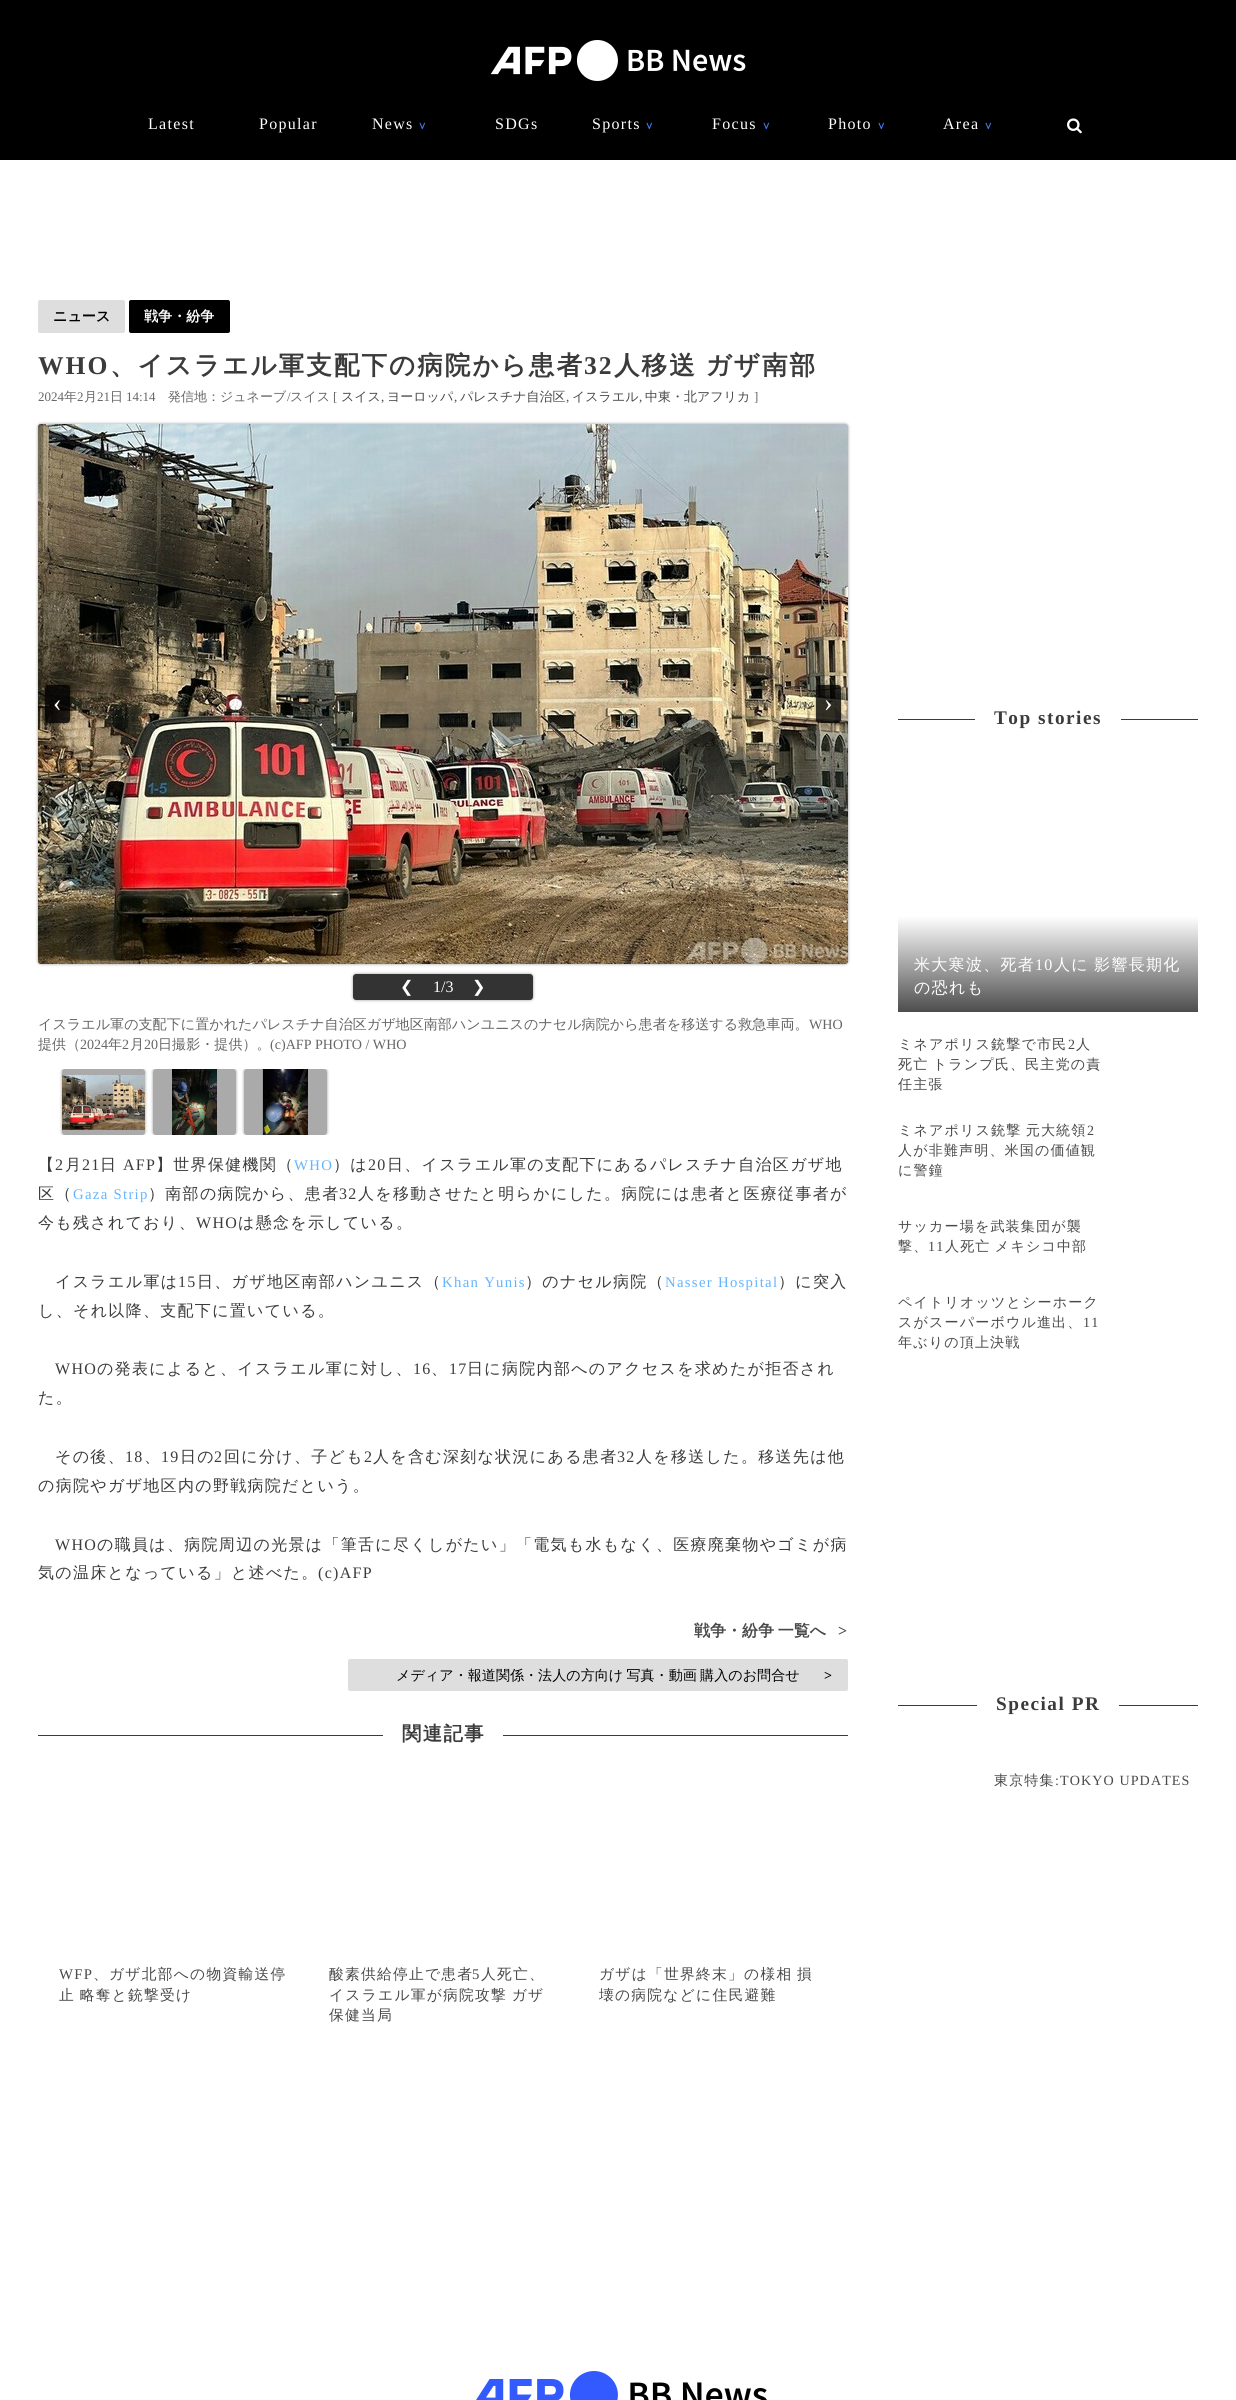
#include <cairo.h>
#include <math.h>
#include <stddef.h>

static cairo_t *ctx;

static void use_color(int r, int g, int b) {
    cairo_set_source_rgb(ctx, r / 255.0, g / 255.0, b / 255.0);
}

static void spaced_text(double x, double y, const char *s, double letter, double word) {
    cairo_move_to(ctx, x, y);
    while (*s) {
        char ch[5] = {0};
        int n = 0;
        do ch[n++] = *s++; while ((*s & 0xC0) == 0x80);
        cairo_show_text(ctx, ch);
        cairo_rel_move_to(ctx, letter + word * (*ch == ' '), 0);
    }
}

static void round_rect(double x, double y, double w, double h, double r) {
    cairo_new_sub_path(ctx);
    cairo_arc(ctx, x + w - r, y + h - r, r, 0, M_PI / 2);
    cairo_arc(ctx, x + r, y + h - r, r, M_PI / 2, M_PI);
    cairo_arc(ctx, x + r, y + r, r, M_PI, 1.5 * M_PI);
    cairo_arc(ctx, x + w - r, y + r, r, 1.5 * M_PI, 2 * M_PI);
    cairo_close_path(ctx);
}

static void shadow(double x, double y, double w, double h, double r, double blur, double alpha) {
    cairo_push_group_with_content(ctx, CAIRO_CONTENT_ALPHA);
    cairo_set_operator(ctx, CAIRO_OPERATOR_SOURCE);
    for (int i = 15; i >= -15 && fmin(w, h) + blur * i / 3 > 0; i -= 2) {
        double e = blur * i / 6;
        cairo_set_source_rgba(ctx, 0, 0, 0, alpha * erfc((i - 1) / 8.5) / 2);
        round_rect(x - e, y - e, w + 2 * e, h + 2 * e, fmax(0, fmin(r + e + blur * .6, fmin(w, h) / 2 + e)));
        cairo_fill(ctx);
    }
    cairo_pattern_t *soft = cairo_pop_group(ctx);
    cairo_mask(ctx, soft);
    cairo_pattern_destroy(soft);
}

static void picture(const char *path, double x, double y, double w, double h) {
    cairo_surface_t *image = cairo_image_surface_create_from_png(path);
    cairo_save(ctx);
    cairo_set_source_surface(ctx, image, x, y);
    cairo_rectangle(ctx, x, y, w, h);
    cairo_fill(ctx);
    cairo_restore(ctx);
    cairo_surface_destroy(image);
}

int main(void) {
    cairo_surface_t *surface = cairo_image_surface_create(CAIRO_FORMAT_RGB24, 1236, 2400);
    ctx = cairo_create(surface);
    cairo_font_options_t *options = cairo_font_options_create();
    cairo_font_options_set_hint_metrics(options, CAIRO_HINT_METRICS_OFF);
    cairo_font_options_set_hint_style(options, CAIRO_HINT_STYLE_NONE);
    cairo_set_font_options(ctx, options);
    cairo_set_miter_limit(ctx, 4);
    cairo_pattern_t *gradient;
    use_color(255, 255, 255);
    cairo_paint(ctx);
    use_color(0, 0, 0);
    cairo_rectangle(ctx, 0, 0, 1236, 160);
    cairo_fill(ctx);
    picture("img1.png", 490, 40, 256, 41);
    cairo_select_font_face(ctx, "Liberation Serif", CAIRO_FONT_SLANT_NORMAL, CAIRO_FONT_WEIGHT_NORMAL);
    cairo_set_font_size(ctx, 16);
    use_color(255, 255, 255);
    spaced_text(148, 129, "Latest", 1.3, 0);
    spaced_text(259, 129, "Popular", 1.3, 0);
    spaced_text(372, 129, "News", 1.3, 0);
    cairo_select_font_face(ctx, "WenQuanYi Zen Hei", CAIRO_FONT_SLANT_NORMAL, CAIRO_FONT_WEIGHT_BOLD);
    cairo_set_font_size(ctx, 10);
    use_color(71, 129, 255);
    spaced_text(418, 129, "∨", 7, 0);
    cairo_select_font_face(ctx, "Liberation Serif", CAIRO_FONT_SLANT_NORMAL, CAIRO_FONT_WEIGHT_NORMAL);
    cairo_set_font_size(ctx, 16);
    use_color(255, 255, 255);
    spaced_text(495, 129, "SDGs", 1.3, 0);
    spaced_text(592, 129, "Sports", 1.3, 0);
    cairo_select_font_face(ctx, "WenQuanYi Zen Hei", CAIRO_FONT_SLANT_NORMAL, CAIRO_FONT_WEIGHT_BOLD);
    cairo_set_font_size(ctx, 10);
    use_color(71, 129, 255);
    spaced_text(645, 129, "∨", 7, 0);
    cairo_select_font_face(ctx, "Liberation Serif", CAIRO_FONT_SLANT_NORMAL, CAIRO_FONT_WEIGHT_NORMAL);
    cairo_set_font_size(ctx, 16);
    use_color(255, 255, 255);
    spaced_text(712, 129, "Focus", 1.3, 0);
    cairo_select_font_face(ctx, "WenQuanYi Zen Hei", CAIRO_FONT_SLANT_NORMAL, CAIRO_FONT_WEIGHT_BOLD);
    cairo_set_font_size(ctx, 10);
    use_color(71, 129, 255);
    spaced_text(762, 129, "∨", 7, 0);
    cairo_select_font_face(ctx, "Liberation Serif", CAIRO_FONT_SLANT_NORMAL, CAIRO_FONT_WEIGHT_NORMAL);
    cairo_set_font_size(ctx, 16);
    use_color(255, 255, 255);
    spaced_text(828, 129, "Photo", 1.3, 0);
    cairo_select_font_face(ctx, "WenQuanYi Zen Hei", CAIRO_FONT_SLANT_NORMAL, CAIRO_FONT_WEIGHT_BOLD);
    cairo_set_font_size(ctx, 10);
    use_color(71, 129, 255);
    spaced_text(877, 129, "∨", 7, 0);
    cairo_select_font_face(ctx, "Liberation Serif", CAIRO_FONT_SLANT_NORMAL, CAIRO_FONT_WEIGHT_NORMAL);
    cairo_set_font_size(ctx, 16);
    use_color(255, 255, 255);
    spaced_text(943, 129, "Area", 1.3, 0);
    cairo_select_font_face(ctx, "WenQuanYi Zen Hei", CAIRO_FONT_SLANT_NORMAL, CAIRO_FONT_WEIGHT_BOLD);
    cairo_set_font_size(ctx, 10);
    use_color(71, 129, 255);
    spaced_text(984, 129, "∨", 7, 0);
    picture("img2.png", 1067, 118, 15, 16);
    use_color(222, 222, 222);
    round_rect(38, 300, 87, 33, 2);
    cairo_fill(ctx);
    cairo_set_font_size(ctx, 14.08);
    use_color(0, 0, 0);
    cairo_move_to(ctx, 53, 321);
    cairo_show_text(ctx, "ニュース");
    round_rect(129, 300, 101, 33, 2);
    cairo_fill(ctx);
    use_color(255, 255, 255);
    cairo_move_to(ctx, 144, 321);
    cairo_show_text(ctx, "戦争・紛争");
    cairo_select_font_face(ctx, "Liberation Serif", CAIRO_FONT_SLANT_NORMAL, CAIRO_FONT_WEIGHT_BOLD);
    cairo_set_font_size(ctx, 25.6);
    use_color(59, 59, 59);
    spaced_text(38, 374, "WHO", 2, 0);
    cairo_select_font_face(ctx, "WenQuanYi Zen Hei", CAIRO_FONT_SLANT_NORMAL, CAIRO_FONT_WEIGHT_BOLD);
    spaced_text(110, 374, "、イスラエル軍支配下の病院から患者", 2, 0);
    cairo_select_font_face(ctx, "Liberation Serif", CAIRO_FONT_SLANT_NORMAL, CAIRO_FONT_WEIGHT_BOLD);
    spaced_text(584, 374, "32", 2, 0);
    cairo_select_font_face(ctx, "WenQuanYi Zen Hei", CAIRO_FONT_SLANT_NORMAL, CAIRO_FONT_WEIGHT_BOLD);
    spaced_text(614, 374, "人移送 ガザ南部", 2, -1);
    cairo_select_font_face(ctx, "Liberation Serif", CAIRO_FONT_SLANT_NORMAL, CAIRO_FONT_WEIGHT_NORMAL);
    cairo_set_font_size(ctx, 13);
    use_color(102, 102, 102);
    cairo_move_to(ctx, 38, 401);
    cairo_show_text(ctx, "2024");
    cairo_select_font_face(ctx, "WenQuanYi Zen Hei Medium", CAIRO_FONT_SLANT_NORMAL, CAIRO_FONT_WEIGHT_NORMAL);
    cairo_move_to(ctx, 64, 401);
    cairo_show_text(ctx, "年");
    cairo_select_font_face(ctx, "Liberation Serif", CAIRO_FONT_SLANT_NORMAL, CAIRO_FONT_WEIGHT_NORMAL);
    cairo_move_to(ctx, 77, 401);
    cairo_show_text(ctx, "2");
    cairo_select_font_face(ctx, "WenQuanYi Zen Hei Medium", CAIRO_FONT_SLANT_NORMAL, CAIRO_FONT_WEIGHT_NORMAL);
    cairo_move_to(ctx, 84, 401);
    cairo_show_text(ctx, "月");
    cairo_select_font_face(ctx, "Liberation Serif", CAIRO_FONT_SLANT_NORMAL, CAIRO_FONT_WEIGHT_NORMAL);
    cairo_move_to(ctx, 97, 401);
    cairo_show_text(ctx, "21");
    cairo_select_font_face(ctx, "WenQuanYi Zen Hei Medium", CAIRO_FONT_SLANT_NORMAL, CAIRO_FONT_WEIGHT_NORMAL);
    cairo_move_to(ctx, 110, 401);
    cairo_show_text(ctx, "日");
    cairo_select_font_face(ctx, "Liberation Serif", CAIRO_FONT_SLANT_NORMAL, CAIRO_FONT_WEIGHT_NORMAL);
    cairo_move_to(ctx, 126, 401);
    cairo_show_text(ctx, "14:14");
    cairo_select_font_face(ctx, "WenQuanYi Zen Hei Medium", CAIRO_FONT_SLANT_NORMAL, CAIRO_FONT_WEIGHT_NORMAL);
    cairo_move_to(ctx, 168, 401);
    cairo_show_text(ctx, "発信地：ジュネーブ スイス");
    use_color(73, 73, 73);
    cairo_move_to(ctx, 341, 401);
    cairo_show_text(ctx, "スイス");
    cairo_move_to(ctx, 387, 401);
    cairo_show_text(ctx, "ヨーロッパ");
    cairo_move_to(ctx, 460, 401);
    cairo_show_text(ctx, "パレスチナ自治区");
    cairo_move_to(ctx, 572, 401);
    cairo_show_text(ctx, "イスラエル");
    cairo_move_to(ctx, 645, 401);
    cairo_show_text(ctx, "中東・北アフリカ");
    cairo_select_font_face(ctx, "Liberation Serif", CAIRO_FONT_SLANT_NORMAL, CAIRO_FONT_WEIGHT_NORMAL);
    use_color(102, 102, 102);
    cairo_move_to(ctx, 287, 401);
    cairo_show_text(ctx, "/");
    cairo_move_to(ctx, 333, 401);
    cairo_show_text(ctx, "[");
    use_color(73, 73, 73);
    cairo_move_to(ctx, 381, 401);
    cairo_show_text(ctx, ",");
    cairo_move_to(ctx, 454, 401);
    cairo_show_text(ctx, ",");
    cairo_move_to(ctx, 566, 401);
    cairo_show_text(ctx, ",");
    cairo_move_to(ctx, 639, 401);
    cairo_show_text(ctx, ",");
    use_color(102, 102, 102);
    cairo_move_to(ctx, 754, 401);
    cairo_show_text(ctx, "]");
    use_color(0, 0, 0);
    shadow(38, 424, 810, 540, 3, 1.5, 0.4);
    picture("img3.png", 38, 424, 810, 540);
    cairo_save(ctx);
    cairo_set_fill_rule(ctx, CAIRO_FILL_RULE_EVEN_ODD);
    cairo_new_path(ctx);
    cairo_move_to(ctx, 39, 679);
    cairo_line_to(ctx, 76, 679);
    cairo_line_to(ctx, 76, 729);
    cairo_line_to(ctx, 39, 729);
    cairo_close_path(ctx);
    cairo_move_to(ctx, 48, 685);
    cairo_line_to(ctx, 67, 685);
    cairo_curve_to(ctx, 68.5, 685, 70, 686.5, 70, 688);
    cairo_line_to(ctx, 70, 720);
    cairo_curve_to(ctx, 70, 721.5, 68.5, 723, 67, 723);
    cairo_line_to(ctx, 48, 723);
    cairo_curve_to(ctx, 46.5, 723, 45, 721.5, 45, 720);
    cairo_line_to(ctx, 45, 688);
    cairo_curve_to(ctx, 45, 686.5, 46.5, 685, 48, 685);
    cairo_close_path(ctx);
    cairo_clip(ctx);
    shadow(45, 685, 25, 38, 3, 1.5, 0.4);
    cairo_restore(ctx);
    cairo_set_source_rgba(ctx, 0, 0, 0, 0.8);
    round_rect(45, 685, 25, 38, 3);
    cairo_fill(ctx);
    cairo_set_font_size(ctx, 25.6);
    use_color(255, 255, 255);
    cairo_move_to(ctx, 53, 711);
    cairo_show_text(ctx, "‹");
    cairo_save(ctx);
    cairo_set_fill_rule(ctx, CAIRO_FILL_RULE_EVEN_ODD);
    cairo_new_path(ctx);
    cairo_move_to(ctx, 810, 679);
    cairo_line_to(ctx, 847, 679);
    cairo_line_to(ctx, 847, 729);
    cairo_line_to(ctx, 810, 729);
    cairo_close_path(ctx);
    cairo_move_to(ctx, 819, 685);
    cairo_line_to(ctx, 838, 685);
    cairo_curve_to(ctx, 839.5, 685, 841, 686.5, 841, 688);
    cairo_line_to(ctx, 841, 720);
    cairo_curve_to(ctx, 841, 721.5, 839.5, 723, 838, 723);
    cairo_line_to(ctx, 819, 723);
    cairo_curve_to(ctx, 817.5, 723, 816, 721.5, 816, 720);
    cairo_line_to(ctx, 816, 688);
    cairo_curve_to(ctx, 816, 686.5, 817.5, 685, 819, 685);
    cairo_close_path(ctx);
    cairo_clip(ctx);
    use_color(0, 0, 0);
    shadow(816, 685, 25, 38, 3, 1.5, 0.4);
    cairo_restore(ctx);
    cairo_set_source_rgba(ctx, 0, 0, 0, 0.8);
    round_rect(816, 685, 25, 38, 3);
    cairo_fill(ctx);
    use_color(255, 255, 255);
    cairo_move_to(ctx, 824, 711);
    cairo_show_text(ctx, "›");
    cairo_save(ctx);
    cairo_set_fill_rule(ctx, CAIRO_FILL_RULE_EVEN_ODD);
    cairo_new_path(ctx);
    cairo_move_to(ctx, 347, 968);
    cairo_line_to(ctx, 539, 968);
    cairo_line_to(ctx, 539, 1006);
    cairo_line_to(ctx, 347, 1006);
    cairo_close_path(ctx);
    cairo_move_to(ctx, 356, 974);
    cairo_line_to(ctx, 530, 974);
    cairo_curve_to(ctx, 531.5, 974, 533, 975.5, 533, 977);
    cairo_line_to(ctx, 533, 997);
    cairo_curve_to(ctx, 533, 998.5, 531.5, 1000, 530, 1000);
    cairo_line_to(ctx, 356, 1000);
    cairo_curve_to(ctx, 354.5, 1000, 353, 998.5, 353, 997);
    cairo_line_to(ctx, 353, 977);
    cairo_curve_to(ctx, 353, 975.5, 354.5, 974, 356, 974);
    cairo_close_path(ctx);
    cairo_clip(ctx);
    use_color(0, 0, 0);
    shadow(353, 974, 180, 26, 3, 1.5, 0.4);
    cairo_restore(ctx);
    cairo_set_source_rgba(ctx, 0, 0, 0, 0.8);
    round_rect(353, 974, 180, 26, 3);
    cairo_fill(ctx);
    cairo_select_font_face(ctx, "DejaVu Sans", CAIRO_FONT_SLANT_NORMAL, CAIRO_FONT_WEIGHT_NORMAL);
    cairo_set_font_size(ctx, 16);
    use_color(255, 255, 255);
    cairo_move_to(ctx, 400, 992);
    cairo_show_text(ctx, "❮");
    cairo_select_font_face(ctx, "Liberation Serif", CAIRO_FONT_SLANT_NORMAL, CAIRO_FONT_WEIGHT_NORMAL);
    cairo_move_to(ctx, 433, 992);
    cairo_show_text(ctx, "1/3");
    cairo_select_font_face(ctx, "DejaVu Sans", CAIRO_FONT_SLANT_NORMAL, CAIRO_FONT_WEIGHT_NORMAL);
    cairo_move_to(ctx, 472, 992);
    cairo_show_text(ctx, "❯");
    cairo_select_font_face(ctx, "WenQuanYi Zen Hei Medium", CAIRO_FONT_SLANT_NORMAL, CAIRO_FONT_WEIGHT_NORMAL);
    cairo_set_font_size(ctx, 14.08);
    use_color(102, 102, 102);
    cairo_move_to(ctx, 38, 1029);
    cairo_show_text(ctx, "イスラエル軍の支配下に置かれたパレスチナ自治区ガザ地区南部ハンユニスのナセル病院から患者を移送する救急車両。");
    cairo_select_font_face(ctx, "Liberation Serif", CAIRO_FONT_SLANT_NORMAL, CAIRO_FONT_WEIGHT_NORMAL);
    cairo_move_to(ctx, 809, 1029);
    cairo_show_text(ctx, "WHO");
    cairo_select_font_face(ctx, "WenQuanYi Zen Hei Medium", CAIRO_FONT_SLANT_NORMAL, CAIRO_FONT_WEIGHT_NORMAL);
    cairo_move_to(ctx, 38, 1049);
    cairo_show_text(ctx, "提供（");
    cairo_select_font_face(ctx, "Liberation Serif", CAIRO_FONT_SLANT_NORMAL, CAIRO_FONT_WEIGHT_NORMAL);
    cairo_move_to(ctx, 80, 1049);
    cairo_show_text(ctx, "2024");
    cairo_select_font_face(ctx, "WenQuanYi Zen Hei Medium", CAIRO_FONT_SLANT_NORMAL, CAIRO_FONT_WEIGHT_NORMAL);
    cairo_move_to(ctx, 108, 1049);
    cairo_show_text(ctx, "年");
    cairo_select_font_face(ctx, "Liberation Serif", CAIRO_FONT_SLANT_NORMAL, CAIRO_FONT_WEIGHT_NORMAL);
    cairo_move_to(ctx, 122, 1049);
    cairo_show_text(ctx, "2");
    cairo_select_font_face(ctx, "WenQuanYi Zen Hei Medium", CAIRO_FONT_SLANT_NORMAL, CAIRO_FONT_WEIGHT_NORMAL);
    cairo_move_to(ctx, 130, 1049);
    cairo_show_text(ctx, "月");
    cairo_select_font_face(ctx, "Liberation Serif", CAIRO_FONT_SLANT_NORMAL, CAIRO_FONT_WEIGHT_NORMAL);
    cairo_move_to(ctx, 144, 1049);
    cairo_show_text(ctx, "20");
    cairo_select_font_face(ctx, "WenQuanYi Zen Hei Medium", CAIRO_FONT_SLANT_NORMAL, CAIRO_FONT_WEIGHT_NORMAL);
    cairo_move_to(ctx, 158, 1049);
    cairo_show_text(ctx, "日撮影・提供）。");
    cairo_select_font_face(ctx, "Liberation Serif", CAIRO_FONT_SLANT_NORMAL, CAIRO_FONT_WEIGHT_NORMAL);
    cairo_move_to(ctx, 270, 1049);
    cairo_show_text(ctx, "(c)AFP PHOTO / WHO");
    cairo_save(ctx);
    cairo_rectangle(ctx, 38, 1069, 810, 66);
    cairo_clip(ctx);
    use_color(0, 0, 0);
    shadow(62, 1069, 83, 66, 3, 1.5, 0.4);
    cairo_restore(ctx);
    use_color(170, 170, 170);
    round_rect(62, 1069, 83, 66, 3);
    cairo_fill(ctx);
    picture("img4.png", 62, 1075, 83, 55);
    cairo_save(ctx);
    cairo_rectangle(ctx, 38, 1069, 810, 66);
    cairo_clip(ctx);
    use_color(0, 0, 0);
    shadow(153, 1069, 83, 66, 3, 1.5, 0.4);
    cairo_restore(ctx);
    round_rect(153, 1069, 83, 66, 3);
    cairo_fill(ctx);
    picture("img5.png", 172, 1069, 45, 66);
    cairo_save(ctx);
    cairo_rectangle(ctx, 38, 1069, 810, 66);
    cairo_clip(ctx);
    use_color(0, 0, 0);
    shadow(244, 1069, 83, 66, 3, 1.5, 0.4);
    cairo_restore(ctx);
    round_rect(244, 1069, 83, 66, 3);
    cairo_fill(ctx);
    picture("img6.png", 262, 1069, 46, 66);
    cairo_select_font_face(ctx, "WenQuanYi Zen Hei Medium", CAIRO_FONT_SLANT_NORMAL, CAIRO_FONT_WEIGHT_NORMAL);
    cairo_set_font_size(ctx, 16);
    use_color(59, 59, 59);
    spaced_text(38, 1170, "【", 1.3, 0);
    cairo_select_font_face(ctx, "Liberation Serif", CAIRO_FONT_SLANT_NORMAL, CAIRO_FONT_WEIGHT_NORMAL);
    spaced_text(55, 1170, "2", 1.3, 0);
    cairo_select_font_face(ctx, "WenQuanYi Zen Hei Medium", CAIRO_FONT_SLANT_NORMAL, CAIRO_FONT_WEIGHT_NORMAL);
    spaced_text(65, 1170, "月", 1.3, 0);
    cairo_select_font_face(ctx, "Liberation Serif", CAIRO_FONT_SLANT_NORMAL, CAIRO_FONT_WEIGHT_NORMAL);
    spaced_text(82, 1170, "21", 1.3, 0);
    cairo_select_font_face(ctx, "WenQuanYi Zen Hei Medium", CAIRO_FONT_SLANT_NORMAL, CAIRO_FONT_WEIGHT_NORMAL);
    spaced_text(100, 1170, "日", 1.3, 0);
    cairo_select_font_face(ctx, "Liberation Serif", CAIRO_FONT_SLANT_NORMAL, CAIRO_FONT_WEIGHT_NORMAL);
    spaced_text(123, 1170, "AFP", 1.3, 0);
    cairo_select_font_face(ctx, "WenQuanYi Zen Hei Medium", CAIRO_FONT_SLANT_NORMAL, CAIRO_FONT_WEIGHT_NORMAL);
    spaced_text(156, 1170, "】世界保健機関（", 1.3, 0);
    cairo_select_font_face(ctx, "Liberation Serif", CAIRO_FONT_SLANT_NORMAL, CAIRO_FONT_WEIGHT_NORMAL);
    cairo_set_font_size(ctx, 14.75);
    use_color(100, 180, 255);
    spaced_text(294, 1170, "WHO", 1.3, 0);
    cairo_select_font_face(ctx, "WenQuanYi Zen Hei Medium", CAIRO_FONT_SLANT_NORMAL, CAIRO_FONT_WEIGHT_NORMAL);
    cairo_set_font_size(ctx, 16);
    use_color(59, 59, 59);
    spaced_text(333, 1170, "）は", 1.3, 0);
    cairo_select_font_face(ctx, "Liberation Serif", CAIRO_FONT_SLANT_NORMAL, CAIRO_FONT_WEIGHT_NORMAL);
    spaced_text(368, 1170, "20", 1.3, 0);
    cairo_select_font_face(ctx, "WenQuanYi Zen Hei Medium", CAIRO_FONT_SLANT_NORMAL, CAIRO_FONT_WEIGHT_NORMAL);
    spaced_text(387, 1170, "日、イスラエル軍の支配下にあるパレスチナ自治区ガザ地", 1.3, 0);
    spaced_text(38, 1199, "区（", 1.3, 0);
    cairo_select_font_face(ctx, "Liberation Serif", CAIRO_FONT_SLANT_NORMAL, CAIRO_FONT_WEIGHT_NORMAL);
    cairo_set_font_size(ctx, 14.75);
    use_color(100, 180, 255);
    spaced_text(73, 1199, "Gaza Strip", 1.3, 0);
    cairo_select_font_face(ctx, "WenQuanYi Zen Hei Medium", CAIRO_FONT_SLANT_NORMAL, CAIRO_FONT_WEIGHT_NORMAL);
    cairo_set_font_size(ctx, 16);
    use_color(59, 59, 59);
    spaced_text(148, 1199, "）南部の病院から、患者", 1.3, 0);
    cairo_select_font_face(ctx, "Liberation Serif", CAIRO_FONT_SLANT_NORMAL, CAIRO_FONT_WEIGHT_NORMAL);
    spaced_text(339, 1199, "32", 1.3, 0);
    cairo_select_font_face(ctx, "WenQuanYi Zen Hei Medium", CAIRO_FONT_SLANT_NORMAL, CAIRO_FONT_WEIGHT_NORMAL);
    spaced_text(358, 1199, "人を移動させたと明らかにした。病院には患者と医療従事者が", 1.3, 0);
    spaced_text(38, 1228, "今も残されており、", 1.3, 0);
    cairo_select_font_face(ctx, "Liberation Serif", CAIRO_FONT_SLANT_NORMAL, CAIRO_FONT_WEIGHT_NORMAL);
    spaced_text(196, 1228, "WHO", 1.3, 0);
    cairo_select_font_face(ctx, "WenQuanYi Zen Hei Medium", CAIRO_FONT_SLANT_NORMAL, CAIRO_FONT_WEIGHT_NORMAL);
    spaced_text(238, 1228, "は懸念を示している。", 1.3, 0);
    spaced_text(55, 1287, "イスラエル軍は", 1.3, 0);
    cairo_select_font_face(ctx, "Liberation Serif", CAIRO_FONT_SLANT_NORMAL, CAIRO_FONT_WEIGHT_NORMAL);
    spaced_text(178, 1287, "15", 1.3, 0);
    cairo_select_font_face(ctx, "WenQuanYi Zen Hei Medium", CAIRO_FONT_SLANT_NORMAL, CAIRO_FONT_WEIGHT_NORMAL);
    spaced_text(197, 1287, "日、ガザ地区南部ハンユニス（", 1.3, 0);
    cairo_select_font_face(ctx, "Liberation Serif", CAIRO_FONT_SLANT_NORMAL, CAIRO_FONT_WEIGHT_NORMAL);
    cairo_set_font_size(ctx, 14.75);
    use_color(100, 180, 255);
    spaced_text(442, 1287, "Khan Yunis", 1.3, 0);
    cairo_select_font_face(ctx, "WenQuanYi Zen Hei Medium", CAIRO_FONT_SLANT_NORMAL, CAIRO_FONT_WEIGHT_NORMAL);
    cairo_set_font_size(ctx, 16);
    use_color(59, 59, 59);
    spaced_text(525, 1287, "）のナセル病院（", 1.3, 0);
    cairo_select_font_face(ctx, "Liberation Serif", CAIRO_FONT_SLANT_NORMAL, CAIRO_FONT_WEIGHT_NORMAL);
    cairo_set_font_size(ctx, 14.75);
    use_color(100, 180, 255);
    spaced_text(665, 1287, "Nasser Hospital", 1.3, 0);
    cairo_select_font_face(ctx, "WenQuanYi Zen Hei Medium", CAIRO_FONT_SLANT_NORMAL, CAIRO_FONT_WEIGHT_NORMAL);
    cairo_set_font_size(ctx, 16);
    use_color(59, 59, 59);
    spaced_text(778, 1287, "）に突入", 1.3, 0);
    spaced_text(38, 1316, "し、それ以降、支配下に置いている。", 1.3, 0);
    cairo_select_font_face(ctx, "Liberation Serif", CAIRO_FONT_SLANT_NORMAL, CAIRO_FONT_WEIGHT_NORMAL);
    spaced_text(55, 1374, "WHO", 1.3, 0);
    cairo_select_font_face(ctx, "WenQuanYi Zen Hei Medium", CAIRO_FONT_SLANT_NORMAL, CAIRO_FONT_WEIGHT_NORMAL);
    spaced_text(97, 1374, "の発表によると、イスラエル軍に対し、", 1.3, 0);
    cairo_select_font_face(ctx, "Liberation Serif", CAIRO_FONT_SLANT_NORMAL, CAIRO_FONT_WEIGHT_NORMAL);
    spaced_text(413, 1374, "16", 1.3, 0);
    cairo_select_font_face(ctx, "WenQuanYi Zen Hei Medium", CAIRO_FONT_SLANT_NORMAL, CAIRO_FONT_WEIGHT_NORMAL);
    spaced_text(431, 1374, "、", 1.3, 0);
    cairo_select_font_face(ctx, "Liberation Serif", CAIRO_FONT_SLANT_NORMAL, CAIRO_FONT_WEIGHT_NORMAL);
    spaced_text(449, 1374, "17", 1.3, 0);
    cairo_select_font_face(ctx, "WenQuanYi Zen Hei Medium", CAIRO_FONT_SLANT_NORMAL, CAIRO_FONT_WEIGHT_NORMAL);
    spaced_text(467, 1374, "日に病院内部へのアクセスを求めたが拒否され", 1.3, 0);
    spaced_text(38, 1403, "た。", 1.3, 0);
    spaced_text(55, 1462, "その後、", 1.3, 0);
    cairo_select_font_face(ctx, "Liberation Serif", CAIRO_FONT_SLANT_NORMAL, CAIRO_FONT_WEIGHT_NORMAL);
    spaced_text(125, 1462, "18", 1.3, 0);
    cairo_select_font_face(ctx, "WenQuanYi Zen Hei Medium", CAIRO_FONT_SLANT_NORMAL, CAIRO_FONT_WEIGHT_NORMAL);
    spaced_text(144, 1462, "、", 1.3, 0);
    cairo_select_font_face(ctx, "Liberation Serif", CAIRO_FONT_SLANT_NORMAL, CAIRO_FONT_WEIGHT_NORMAL);
    spaced_text(161, 1462, "19", 1.3, 0);
    cairo_select_font_face(ctx, "WenQuanYi Zen Hei Medium", CAIRO_FONT_SLANT_NORMAL, CAIRO_FONT_WEIGHT_NORMAL);
    spaced_text(180, 1462, "日の", 1.3, 0);
    cairo_select_font_face(ctx, "Liberation Serif", CAIRO_FONT_SLANT_NORMAL, CAIRO_FONT_WEIGHT_NORMAL);
    spaced_text(214, 1462, "2", 1.3, 0);
    cairo_select_font_face(ctx, "WenQuanYi Zen Hei Medium", CAIRO_FONT_SLANT_NORMAL, CAIRO_FONT_WEIGHT_NORMAL);
    spaced_text(224, 1462, "回に分け、子ども", 1.3, 0);
    cairo_select_font_face(ctx, "Liberation Serif", CAIRO_FONT_SLANT_NORMAL, CAIRO_FONT_WEIGHT_NORMAL);
    spaced_text(364, 1462, "2", 1.3, 0);
    cairo_select_font_face(ctx, "WenQuanYi Zen Hei Medium", CAIRO_FONT_SLANT_NORMAL, CAIRO_FONT_WEIGHT_NORMAL);
    spaced_text(373, 1462, "人を含む深刻な状況にある患者", 1.3, 0);
    cairo_select_font_face(ctx, "Liberation Serif", CAIRO_FONT_SLANT_NORMAL, CAIRO_FONT_WEIGHT_NORMAL);
    spaced_text(617, 1462, "32", 1.3, 0);
    cairo_select_font_face(ctx, "WenQuanYi Zen Hei Medium", CAIRO_FONT_SLANT_NORMAL, CAIRO_FONT_WEIGHT_NORMAL);
    spaced_text(636, 1462, "人を移送した。移送先は他", 1.3, 0);
    spaced_text(38, 1491, "の病院やガザ地区内の野戦病院だという。", 1.3, 0);
    cairo_select_font_face(ctx, "Liberation Serif", CAIRO_FONT_SLANT_NORMAL, CAIRO_FONT_WEIGHT_NORMAL);
    spaced_text(55, 1550, "WHO", 1.3, 0);
    cairo_select_font_face(ctx, "WenQuanYi Zen Hei Medium", CAIRO_FONT_SLANT_NORMAL, CAIRO_FONT_WEIGHT_NORMAL);
    spaced_text(97, 1550, "の職員は、病院周辺の光景は「筆舌に尽くしがたい」「電気も水もなく、医療廃棄物やゴミが病", 1.3, 0);
    spaced_text(38, 1578, "気の温床となっている」と述べた。", 1.3, 0);
    cairo_select_font_face(ctx, "Liberation Serif", CAIRO_FONT_SLANT_NORMAL, CAIRO_FONT_WEIGHT_NORMAL);
    spaced_text(318, 1578, "(c)AFP", 1.3, 0);
    cairo_select_font_face(ctx, "WenQuanYi Zen Hei", CAIRO_FONT_SLANT_NORMAL, CAIRO_FONT_WEIGHT_BOLD);
    use_color(73, 73, 73);
    spaced_text(694, 1636, "戦争・紛争 一覧へ", 0, -1);
    cairo_select_font_face(ctx, "Liberation Serif", CAIRO_FONT_SLANT_NORMAL, CAIRO_FONT_WEIGHT_BOLD);
    spaced_text(838, 1636, ">", -4, 0);
    use_color(222, 222, 222);
    round_rect(348, 1659, 500, 32, 2);
    cairo_fill(ctx);
    cairo_select_font_face(ctx, "WenQuanYi Zen Hei Medium", CAIRO_FONT_SLANT_NORMAL, CAIRO_FONT_WEIGHT_NORMAL);
    cairo_set_font_size(ctx, 14.08);
    use_color(0, 0, 0);
    spaced_text(396, 1680, "メディア・報道関係・法人の方向け 写真・動画 購入のお問合せ", 0, -1);
    cairo_select_font_face(ctx, "Liberation Serif", CAIRO_FONT_SLANT_NORMAL, CAIRO_FONT_WEIGHT_BOLD);
    spaced_text(824, 1680, ">", -3, 0);
    use_color(59, 59, 59);
    cairo_rectangle(ctx, 38, 1735, 345, 1);
    cairo_fill(ctx);
    cairo_select_font_face(ctx, "WenQuanYi Zen Hei", CAIRO_FONT_SLANT_NORMAL, CAIRO_FONT_WEIGHT_BOLD);
    cairo_set_font_size(ctx, 19.25);
    spaced_text(402, 1740, "関連記事", 1.5, 0);
    cairo_rectangle(ctx, 503, 1735, 345, 1);
    cairo_fill(ctx);
    cairo_select_font_face(ctx, "Liberation Serif", CAIRO_FONT_SLANT_NORMAL, CAIRO_FONT_WEIGHT_NORMAL);
    cairo_set_font_size(ctx, 14.75);
    use_color(73, 73, 73);
    spaced_text(59, 1979, "WFP", 1.25, 0);
    cairo_select_font_face(ctx, "WenQuanYi Zen Hei Medium", CAIRO_FONT_SLANT_NORMAL, CAIRO_FONT_WEIGHT_NORMAL);
    spaced_text(93, 1979, "、ガザ北部への物資輸送停", 1.25, 0);
    spaced_text(59, 2000, "止 略奪と銃撃受け", 1.25, -1);
    spaced_text(329, 1979, "酸素供給停止で患者", 1.25, 0);
    cairo_select_font_face(ctx, "Liberation Serif", CAIRO_FONT_SLANT_NORMAL, CAIRO_FONT_WEIGHT_NORMAL);
    spaced_text(472, 1979, "5", 1.25, 0);
    cairo_select_font_face(ctx, "WenQuanYi Zen Hei Medium", CAIRO_FONT_SLANT_NORMAL, CAIRO_FONT_WEIGHT_NORMAL);
    spaced_text(481, 1979, "人死亡、", 1.25, 0);
    spaced_text(329, 2000, "イスラエル軍が病院攻撃 ガザ", 1.25, -1);
    spaced_text(329, 2020, "保健当局", 1.25, 0);
    spaced_text(599, 1979, "ガザは「世界終末」の様相 損", 1.25, -1);
    spaced_text(599, 2000, "壊の病院などに住民避難", 1.25, 0);
    use_color(59, 59, 59);
    cairo_rectangle(ctx, 898, 719, 77, 1);
    cairo_fill(ctx);
    cairo_select_font_face(ctx, "Liberation Serif", CAIRO_FONT_SLANT_NORMAL, CAIRO_FONT_WEIGHT_BOLD);
    cairo_set_font_size(ctx, 19.25);
    spaced_text(994, 724, "Top stories", 1.5, 0);
    cairo_rectangle(ctx, 1121, 719, 77, 1);
    cairo_fill(ctx);
    gradient = cairo_pattern_create_linear(1048, 916, 1048, 1012);
    cairo_pattern_add_color_stop_rgba(gradient, 0, 0.302, 0.302, 0.302, 1);
    cairo_pattern_add_color_stop_rgba(gradient, 0, 1, 1, 1, 1);
    cairo_pattern_add_color_stop_rgba(gradient, 1, 0.302, 0.302, 0.302, 1);
    cairo_set_source(ctx, gradient);
    cairo_pattern_destroy(gradient);
    cairo_rectangle(ctx, 898, 917, 300, 95);
    cairo_fill(ctx);
    cairo_select_font_face(ctx, "WenQuanYi Zen Hei Medium", CAIRO_FONT_SLANT_NORMAL, CAIRO_FONT_WEIGHT_NORMAL);
    cairo_set_font_size(ctx, 16);
    use_color(255, 255, 255);
    spaced_text(914, 970, "米大寒波、死者", 1.3, 0);
    cairo_select_font_face(ctx, "Liberation Serif", CAIRO_FONT_SLANT_NORMAL, CAIRO_FONT_WEIGHT_NORMAL);
    spaced_text(1035, 970, "10", 1.3, 0);
    cairo_select_font_face(ctx, "WenQuanYi Zen Hei Medium", CAIRO_FONT_SLANT_NORMAL, CAIRO_FONT_WEIGHT_NORMAL);
    spaced_text(1054, 970, "人に 影響長期化", 1.3, -1);
    spaced_text(914, 993, "の恐れも", 1.3, 0);
    cairo_set_font_size(ctx, 14.08);
    use_color(73, 73, 73);
    spaced_text(898, 1049, "ミネアポリス銃撃で市民", 1.1, 0);
    cairo_select_font_face(ctx, "Liberation Serif", CAIRO_FONT_SLANT_NORMAL, CAIRO_FONT_WEIGHT_NORMAL);
    spaced_text(1068, 1049, "2", 1.1, 0);
    cairo_select_font_face(ctx, "WenQuanYi Zen Hei Medium", CAIRO_FONT_SLANT_NORMAL, CAIRO_FONT_WEIGHT_NORMAL);
    spaced_text(1076, 1049, "人", 1.1, 0);
    spaced_text(898, 1069, "死亡 トランプ氏、民主党の責", 1.1, -1);
    spaced_text(898, 1089, "任主張", 1.1, 0);
    spaced_text(898, 1135, "ミネアポリス銃撃 元大統領", 1.1, -1);
    cairo_select_font_face(ctx, "Liberation Serif", CAIRO_FONT_SLANT_NORMAL, CAIRO_FONT_WEIGHT_NORMAL);
    spaced_text(1087, 1135, "2", 1.1, 0);
    cairo_select_font_face(ctx, "WenQuanYi Zen Hei Medium", CAIRO_FONT_SLANT_NORMAL, CAIRO_FONT_WEIGHT_NORMAL);
    spaced_text(898, 1155, "人が非難声明、米国の価値観", 1.1, 0);
    spaced_text(898, 1175, "に警鐘", 1.1, 0);
    spaced_text(898, 1231, "サッカー場を武装集団が襲", 1.1, 0);
    spaced_text(898, 1251, "撃、", 1.1, 0);
    cairo_select_font_face(ctx, "Liberation Serif", CAIRO_FONT_SLANT_NORMAL, CAIRO_FONT_WEIGHT_NORMAL);
    spaced_text(928, 1251, "11", 1.1, 0);
    cairo_select_font_face(ctx, "WenQuanYi Zen Hei Medium", CAIRO_FONT_SLANT_NORMAL, CAIRO_FONT_WEIGHT_NORMAL);
    spaced_text(945, 1251, "人死亡 メキシコ中部", 1.1, -1);
    spaced_text(898, 1307, "ペイトリオッツとシーホーク", 1.1, 0);
    spaced_text(898, 1327, "スがスーパーボウル進出、", 1.1, 0);
    cairo_select_font_face(ctx, "Liberation Serif", CAIRO_FONT_SLANT_NORMAL, CAIRO_FONT_WEIGHT_NORMAL);
    spaced_text(1083, 1327, "11", 1.1, 0);
    cairo_select_font_face(ctx, "WenQuanYi Zen Hei Medium", CAIRO_FONT_SLANT_NORMAL, CAIRO_FONT_WEIGHT_NORMAL);
    spaced_text(898, 1347, "年ぶりの頂上決戦", 1.1, 0);
    use_color(59, 59, 59);
    cairo_rectangle(ctx, 898, 1705, 79, 1);
    cairo_fill(ctx);
    cairo_select_font_face(ctx, "Liberation Serif", CAIRO_FONT_SLANT_NORMAL, CAIRO_FONT_WEIGHT_BOLD);
    cairo_set_font_size(ctx, 19.25);
    spaced_text(996, 1710, "Special PR", 1.5, 0);
    cairo_rectangle(ctx, 1119, 1705, 79, 1);
    cairo_fill(ctx);
    cairo_select_font_face(ctx, "WenQuanYi Zen Hei Medium", CAIRO_FONT_SLANT_NORMAL, CAIRO_FONT_WEIGHT_NORMAL);
    cairo_set_font_size(ctx, 14.08);
    use_color(73, 73, 73);
    spaced_text(994, 1785, "東京特集", 1.1, 0);
    cairo_select_font_face(ctx, "Liberation Serif", CAIRO_FONT_SLANT_NORMAL, CAIRO_FONT_WEIGHT_NORMAL);
    spaced_text(1055, 1785, ":TOKYO UPDATES", 1.1, 0);
    picture("img7.png", 476, 2371, 291, 29);
    cairo_surface_write_to_png(surface, "result.png");
    cairo_font_options_destroy(options);
    cairo_destroy(ctx);
    cairo_surface_destroy(surface);
    return 0;
}
